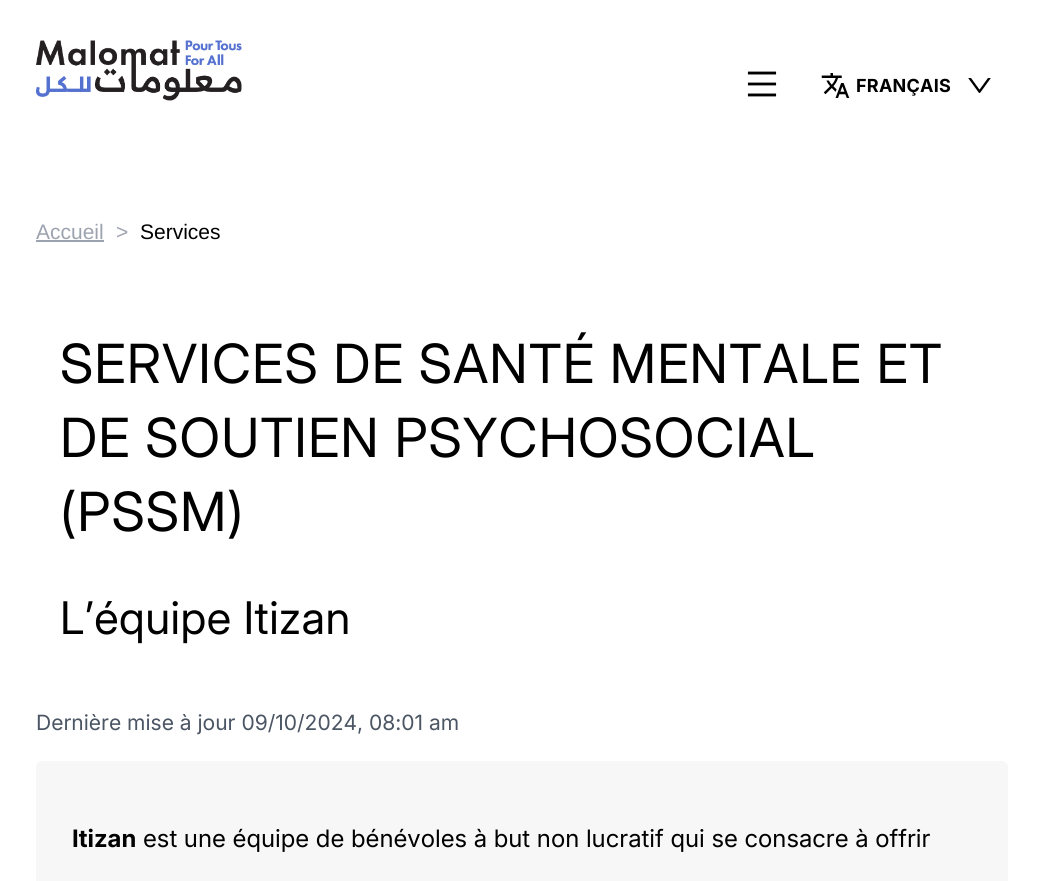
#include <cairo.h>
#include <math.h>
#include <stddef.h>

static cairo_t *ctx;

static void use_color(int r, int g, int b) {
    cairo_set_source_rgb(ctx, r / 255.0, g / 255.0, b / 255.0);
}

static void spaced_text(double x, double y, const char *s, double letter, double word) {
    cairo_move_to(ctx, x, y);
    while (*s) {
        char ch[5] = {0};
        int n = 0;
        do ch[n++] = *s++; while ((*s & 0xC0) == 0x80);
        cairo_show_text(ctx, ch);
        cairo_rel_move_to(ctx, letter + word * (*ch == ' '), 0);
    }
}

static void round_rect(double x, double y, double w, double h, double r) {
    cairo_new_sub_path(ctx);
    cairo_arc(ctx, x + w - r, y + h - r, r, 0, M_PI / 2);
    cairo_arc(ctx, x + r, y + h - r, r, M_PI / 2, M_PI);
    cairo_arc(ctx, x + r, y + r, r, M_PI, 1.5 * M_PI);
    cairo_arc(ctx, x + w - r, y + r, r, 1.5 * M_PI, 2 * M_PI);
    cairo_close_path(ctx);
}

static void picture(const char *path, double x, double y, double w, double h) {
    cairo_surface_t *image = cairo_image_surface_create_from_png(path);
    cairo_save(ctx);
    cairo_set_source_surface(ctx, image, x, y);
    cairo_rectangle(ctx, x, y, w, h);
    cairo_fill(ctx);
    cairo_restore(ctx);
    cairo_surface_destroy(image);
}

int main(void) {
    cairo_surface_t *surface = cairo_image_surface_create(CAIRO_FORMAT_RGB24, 1044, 881);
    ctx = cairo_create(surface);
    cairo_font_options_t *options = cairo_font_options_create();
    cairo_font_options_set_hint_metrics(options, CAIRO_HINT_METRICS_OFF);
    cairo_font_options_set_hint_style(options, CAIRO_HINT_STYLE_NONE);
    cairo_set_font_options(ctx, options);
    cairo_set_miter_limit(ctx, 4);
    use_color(255, 255, 255);
    cairo_paint(ctx);
    picture("img1.png", 36, 40, 206, 61);
    picture("img2.png", 747, 71, 30, 26);
    picture("img3.png", 821, 73, 29, 25);
    cairo_select_font_face(ctx, "Inter", CAIRO_FONT_SLANT_NORMAL, CAIRO_FONT_WEIGHT_BOLD);
    cairo_set_font_size(ctx, 18);
    use_color(0, 0, 0);
    spaced_text(856, 92, "FRANÇAIS", 0.25, 0);
    picture("img4.png", 968, 78, 23, 15);
    cairo_select_font_face(ctx, "Liberation Sans", CAIRO_FONT_SLANT_NORMAL, CAIRO_FONT_WEIGHT_NORMAL);
    cairo_set_font_size(ctx, 21);
    use_color(156, 163, 175);
    cairo_move_to(ctx, 36, 239);
    cairo_show_text(ctx, "Accueil");
    cairo_rectangle(ctx, 36, 240, 68, 2);
    cairo_fill(ctx);
    cairo_move_to(ctx, 116, 239);
    cairo_show_text(ctx, ">");
    use_color(0, 0, 0);
    cairo_move_to(ctx, 140, 239);
    cairo_show_text(ctx, "Services");
    cairo_select_font_face(ctx, "Inter", CAIRO_FONT_SLANT_NORMAL, CAIRO_FONT_WEIGHT_NORMAL);
    cairo_set_font_size(ctx, 54);
    spaced_text(60, 383, "SERVICES DE SANTÉ MENTALE ET", 1.1, 0);
    spaced_text(60, 457, "DE SOUTIEN PSYCHOSOCIAL", 1.1, 0);
    spaced_text(60, 531, "(PSSM)", 1.1, 0);
    cairo_select_font_face(ctx, "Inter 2", CAIRO_FONT_SLANT_NORMAL, CAIRO_FONT_WEIGHT_NORMAL);
    cairo_set_font_size(ctx, 45);
    spaced_text(60, 634, "L’équipe Itizan", 0.5, 0);
    cairo_select_font_face(ctx, "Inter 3", CAIRO_FONT_SLANT_NORMAL, CAIRO_FONT_WEIGHT_NORMAL);
    cairo_set_font_size(ctx, 21);
    use_color(75, 85, 99);
    cairo_move_to(ctx, 36, 730);
    cairo_show_text(ctx, "Dernière mise à jour 09/10/2024, 08:01 am");
    use_color(247, 247, 247);
    round_rect(36, 761, 972, 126, 6);
    cairo_fill(ctx);
    cairo_select_font_face(ctx, "Inter 2", CAIRO_FONT_SLANT_NORMAL, CAIRO_FONT_WEIGHT_BOLD);
    cairo_set_font_size(ctx, 24);
    use_color(0, 0, 0);
    cairo_move_to(ctx, 72, 847);
    cairo_show_text(ctx, "Itizan");
    cairo_select_font_face(ctx, "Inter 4", CAIRO_FONT_SLANT_NORMAL, CAIRO_FONT_WEIGHT_NORMAL);
    cairo_move_to(ctx, 143, 847);
    cairo_show_text(ctx, "est une équipe de bénévoles à but non lucratif qui se consacre à offrir");
    cairo_surface_write_to_png(surface, "result.png");
    cairo_font_options_destroy(options);
    cairo_destroy(ctx);
    cairo_surface_destroy(surface);
    return 0;
}
